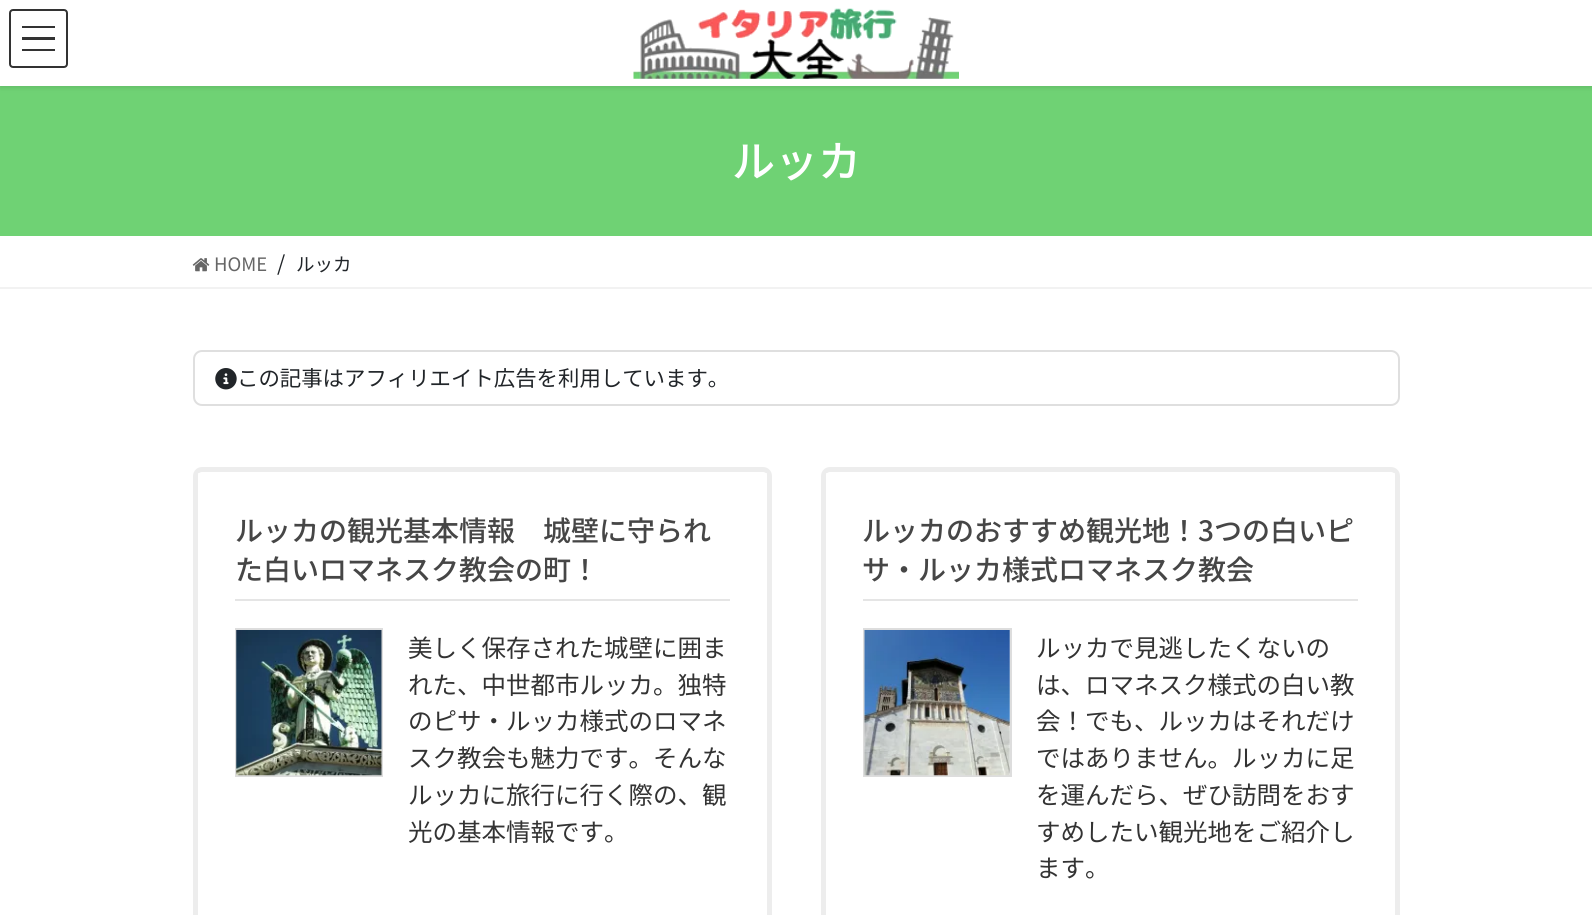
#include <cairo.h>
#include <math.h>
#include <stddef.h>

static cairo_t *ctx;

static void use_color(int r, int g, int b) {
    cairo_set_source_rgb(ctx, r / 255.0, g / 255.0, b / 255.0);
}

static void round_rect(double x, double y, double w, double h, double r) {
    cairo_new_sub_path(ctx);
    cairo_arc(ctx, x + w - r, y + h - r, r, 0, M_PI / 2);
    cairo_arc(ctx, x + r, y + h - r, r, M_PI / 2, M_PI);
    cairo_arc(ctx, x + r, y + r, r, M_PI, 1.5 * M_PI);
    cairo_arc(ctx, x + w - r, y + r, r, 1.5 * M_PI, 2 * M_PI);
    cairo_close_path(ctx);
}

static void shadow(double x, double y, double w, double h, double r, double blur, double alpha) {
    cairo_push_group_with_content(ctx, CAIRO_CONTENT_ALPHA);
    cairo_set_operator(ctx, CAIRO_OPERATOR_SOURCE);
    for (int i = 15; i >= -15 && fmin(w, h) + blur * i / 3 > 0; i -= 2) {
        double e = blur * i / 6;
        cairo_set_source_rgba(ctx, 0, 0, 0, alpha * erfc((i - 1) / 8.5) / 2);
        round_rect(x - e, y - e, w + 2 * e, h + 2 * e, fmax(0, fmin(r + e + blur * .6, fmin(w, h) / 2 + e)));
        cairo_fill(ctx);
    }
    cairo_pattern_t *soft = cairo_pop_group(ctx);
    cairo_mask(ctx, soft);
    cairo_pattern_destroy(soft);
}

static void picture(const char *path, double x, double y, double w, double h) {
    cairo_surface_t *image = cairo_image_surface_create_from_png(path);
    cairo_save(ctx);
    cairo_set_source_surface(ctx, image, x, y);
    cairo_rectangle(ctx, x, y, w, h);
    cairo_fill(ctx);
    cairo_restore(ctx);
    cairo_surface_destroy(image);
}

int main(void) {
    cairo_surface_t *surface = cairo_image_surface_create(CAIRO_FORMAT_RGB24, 1592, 915);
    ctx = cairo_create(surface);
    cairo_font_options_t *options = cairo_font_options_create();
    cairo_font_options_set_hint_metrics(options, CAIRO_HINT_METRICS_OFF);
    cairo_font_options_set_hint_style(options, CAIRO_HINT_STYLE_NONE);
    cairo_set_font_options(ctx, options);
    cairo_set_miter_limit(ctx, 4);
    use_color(255, 255, 255);
    cairo_paint(ctx);
    use_color(111, 210, 116);
    cairo_rectangle(ctx, 0, 86, 1592, 150);
    cairo_fill(ctx);
    use_color(0, 0, 0);
    shadow(0, 2, 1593, 86, 0, 2.5, 0.1);
    use_color(255, 255, 255);
    cairo_rectangle(ctx, 0, 0, 1592, 86);
    cairo_fill(ctx);
    picture("img1.png", 633, 8, 326, 71);
    use_color(51, 51, 51);
    cairo_rectangle(ctx, 22, 26, 33, 2);
    cairo_fill(ctx);
    cairo_rectangle(ctx, 22, 37, 33, 3);
    cairo_fill(ctx);
    cairo_rectangle(ctx, 22, 49, 33, 2);
    cairo_fill(ctx);
    round_rect(10, 10, 57, 57, 3);
    cairo_stroke(ctx);
    cairo_select_font_face(ctx, "Noto Sans JP Medium", CAIRO_FONT_SLANT_NORMAL, CAIRO_FONT_WEIGHT_NORMAL);
    cairo_set_font_size(ctx, 43);
    use_color(255, 255, 255);
    cairo_move_to(ctx, 732, 177);
    cairo_show_text(ctx, "ルッカ");
    use_color(242, 242, 242);
    cairo_rectangle(ctx, 0, 287, 1592, 2);
    cairo_fill(ctx);
    picture("img2.png", 192, 258, 18, 14);
    cairo_select_font_face(ctx, "Noto Sans JP", CAIRO_FONT_SLANT_NORMAL, CAIRO_FONT_WEIGHT_NORMAL);
    cairo_set_font_size(ctx, 18.5);
    use_color(102, 102, 102);
    cairo_move_to(ctx, 214, 271);
    cairo_show_text(ctx, "HOME");
    cairo_set_font_size(ctx, 21);
    use_color(33, 37, 41);
    cairo_move_to(ctx, 277, 271);
    cairo_show_text(ctx, "/");
    cairo_set_font_size(ctx, 18.5);
    cairo_move_to(ctx, 296, 271);
    cairo_show_text(ctx, "ルッカ");
    round_rect(194, 351, 1205, 54, 8);
    use_color(223, 223, 223);
    cairo_stroke(ctx);
    picture("img3.png", 215, 368, 22, 22);
    cairo_set_font_size(ctx, 21.4);
    use_color(33, 37, 41);
    cairo_move_to(ctx, 237, 386);
    cairo_show_text(ctx, "この記事はアフィリエイト広告を利用しています。");
    round_rect(195.5, 469.5, 574, 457, 6.5);
    use_color(237, 237, 237);
    cairo_set_line_width(ctx, 5);
    cairo_stroke(ctx);
    cairo_rectangle(ctx, 199, 474, 567, 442);
    cairo_set_source_rgba(ctx, 1, 1, 1, 0.8);
    cairo_set_line_width(ctx, 2);
    cairo_stroke(ctx);
    use_color(229, 229, 229);
    cairo_rectangle(ctx, 235, 599, 495, 2);
    cairo_fill(ctx);
    cairo_select_font_face(ctx, "Noto Sans JP Medium", CAIRO_FONT_SLANT_NORMAL, CAIRO_FONT_WEIGHT_NORMAL);
    cairo_set_font_size(ctx, 28);
    use_color(70, 70, 70);
    cairo_move_to(ctx, 235, 541);
    cairo_show_text(ctx, "ルッカの観光基本情報　城壁に守られ");
    cairo_move_to(ctx, 235, 580);
    cairo_show_text(ctx, "た白いロマネスク教会の町！");
    cairo_rectangle(ctx, 236, 629, 146, 147);
    use_color(221, 221, 221);
    cairo_stroke(ctx);
    picture("img4.png", 236, 630, 146, 146);
    cairo_select_font_face(ctx, "Noto Sans JP", CAIRO_FONT_SLANT_NORMAL, CAIRO_FONT_WEIGHT_NORMAL);
    cairo_set_font_size(ctx, 24.5);
    use_color(51, 51, 51);
    cairo_move_to(ctx, 408, 657);
    cairo_show_text(ctx, "美しく保存された城壁に囲ま");
    cairo_move_to(ctx, 408, 694);
    cairo_show_text(ctx, "れた、中世都市ルッカ。独特");
    cairo_move_to(ctx, 408, 730);
    cairo_show_text(ctx, "のピサ・ルッカ様式のロマネ");
    cairo_move_to(ctx, 408, 767);
    cairo_show_text(ctx, "スク教会も魅力です。そんな");
    cairo_move_to(ctx, 408, 804);
    cairo_show_text(ctx, "ルッカに旅行に行く際の、観");
    cairo_move_to(ctx, 408, 841);
    cairo_show_text(ctx, "光の基本情報です。");
    round_rect(823.5, 469.5, 574, 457, 6.5);
    use_color(237, 237, 237);
    cairo_set_line_width(ctx, 5);
    cairo_stroke(ctx);
    cairo_rectangle(ctx, 827, 474, 567, 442);
    cairo_set_source_rgba(ctx, 1, 1, 1, 0.8);
    cairo_set_line_width(ctx, 2);
    cairo_stroke(ctx);
    use_color(229, 229, 229);
    cairo_rectangle(ctx, 863, 599, 495, 2);
    cairo_fill(ctx);
    cairo_select_font_face(ctx, "Noto Sans JP Medium", CAIRO_FONT_SLANT_NORMAL, CAIRO_FONT_WEIGHT_NORMAL);
    cairo_set_font_size(ctx, 28);
    use_color(70, 70, 70);
    cairo_move_to(ctx, 862, 541);
    cairo_show_text(ctx, "ルッカのおすすめ観光地！3つの白いピ");
    cairo_move_to(ctx, 862, 580);
    cairo_show_text(ctx, "サ・ルッカ様式ロマネスク教会");
    cairo_rectangle(ctx, 864, 629, 147, 147);
    use_color(221, 221, 221);
    cairo_stroke(ctx);
    picture("img5.png", 864, 630, 146, 146);
    cairo_select_font_face(ctx, "Noto Sans JP", CAIRO_FONT_SLANT_NORMAL, CAIRO_FONT_WEIGHT_NORMAL);
    cairo_set_font_size(ctx, 24.5);
    use_color(51, 51, 51);
    cairo_move_to(ctx, 1036, 657);
    cairo_show_text(ctx, "ルッカで見逃したくないの");
    cairo_move_to(ctx, 1036, 694);
    cairo_show_text(ctx, "は、ロマネスク様式の白い教");
    cairo_move_to(ctx, 1036, 730);
    cairo_show_text(ctx, "会！でも、ルッカはそれだけ");
    cairo_move_to(ctx, 1036, 767);
    cairo_show_text(ctx, "ではありません。ルッカに足");
    cairo_move_to(ctx, 1036, 804);
    cairo_show_text(ctx, "を運んだら、ぜひ訪問をおす");
    cairo_move_to(ctx, 1036, 841);
    cairo_show_text(ctx, "すめしたい観光地をご紹介し");
    cairo_move_to(ctx, 1036, 877);
    cairo_show_text(ctx, "ます。");
    cairo_surface_write_to_png(surface, "result.png");
    cairo_font_options_destroy(options);
    cairo_destroy(ctx);
    cairo_surface_destroy(surface);
    return 0;
}
